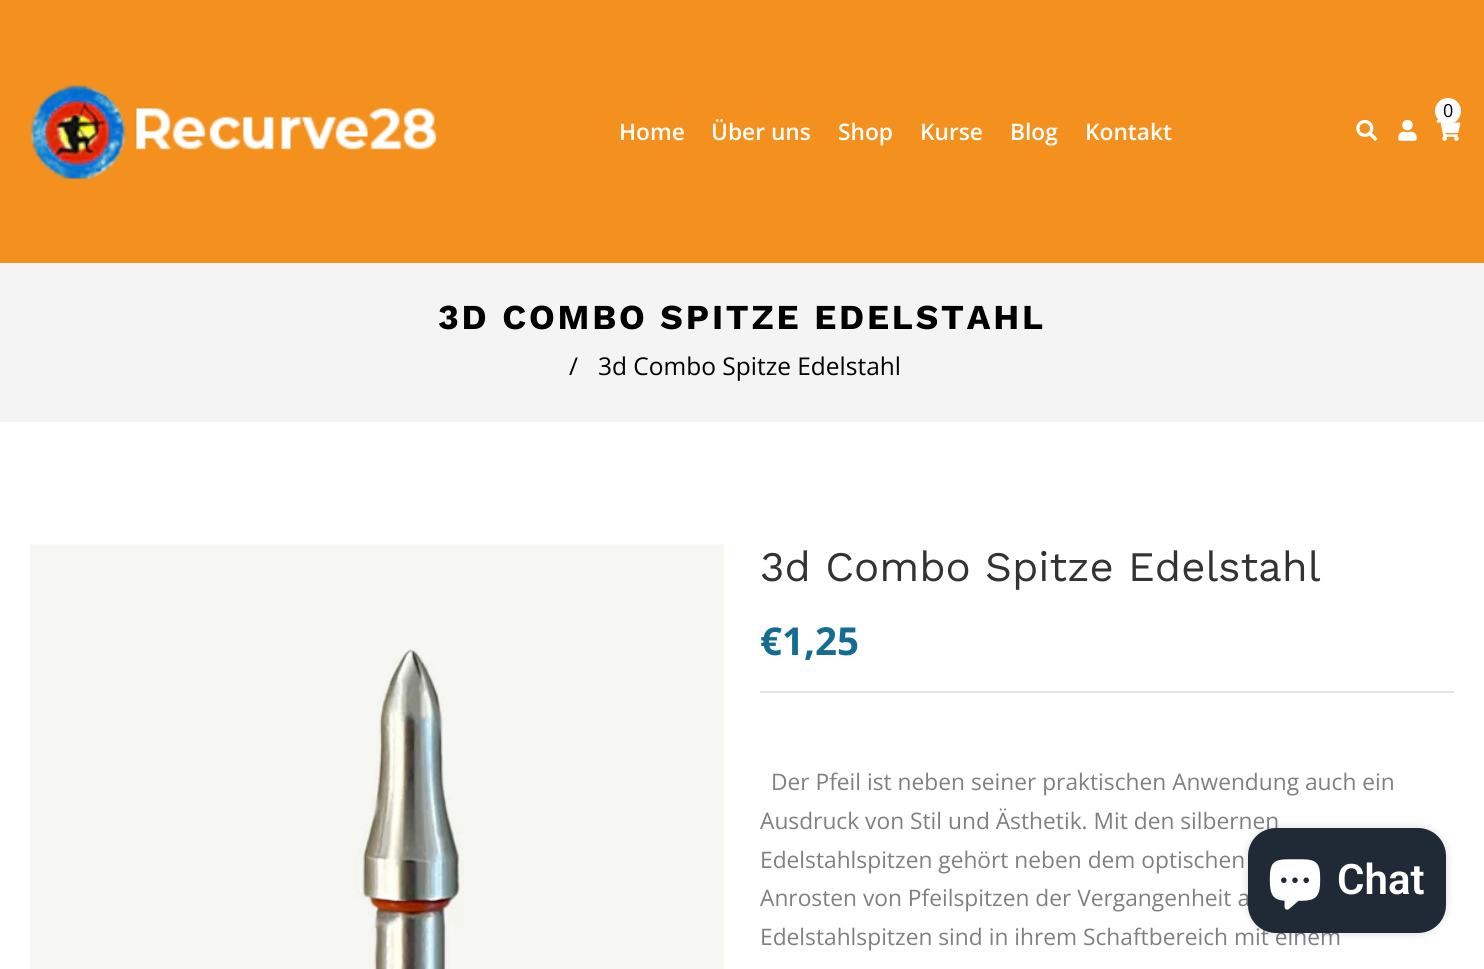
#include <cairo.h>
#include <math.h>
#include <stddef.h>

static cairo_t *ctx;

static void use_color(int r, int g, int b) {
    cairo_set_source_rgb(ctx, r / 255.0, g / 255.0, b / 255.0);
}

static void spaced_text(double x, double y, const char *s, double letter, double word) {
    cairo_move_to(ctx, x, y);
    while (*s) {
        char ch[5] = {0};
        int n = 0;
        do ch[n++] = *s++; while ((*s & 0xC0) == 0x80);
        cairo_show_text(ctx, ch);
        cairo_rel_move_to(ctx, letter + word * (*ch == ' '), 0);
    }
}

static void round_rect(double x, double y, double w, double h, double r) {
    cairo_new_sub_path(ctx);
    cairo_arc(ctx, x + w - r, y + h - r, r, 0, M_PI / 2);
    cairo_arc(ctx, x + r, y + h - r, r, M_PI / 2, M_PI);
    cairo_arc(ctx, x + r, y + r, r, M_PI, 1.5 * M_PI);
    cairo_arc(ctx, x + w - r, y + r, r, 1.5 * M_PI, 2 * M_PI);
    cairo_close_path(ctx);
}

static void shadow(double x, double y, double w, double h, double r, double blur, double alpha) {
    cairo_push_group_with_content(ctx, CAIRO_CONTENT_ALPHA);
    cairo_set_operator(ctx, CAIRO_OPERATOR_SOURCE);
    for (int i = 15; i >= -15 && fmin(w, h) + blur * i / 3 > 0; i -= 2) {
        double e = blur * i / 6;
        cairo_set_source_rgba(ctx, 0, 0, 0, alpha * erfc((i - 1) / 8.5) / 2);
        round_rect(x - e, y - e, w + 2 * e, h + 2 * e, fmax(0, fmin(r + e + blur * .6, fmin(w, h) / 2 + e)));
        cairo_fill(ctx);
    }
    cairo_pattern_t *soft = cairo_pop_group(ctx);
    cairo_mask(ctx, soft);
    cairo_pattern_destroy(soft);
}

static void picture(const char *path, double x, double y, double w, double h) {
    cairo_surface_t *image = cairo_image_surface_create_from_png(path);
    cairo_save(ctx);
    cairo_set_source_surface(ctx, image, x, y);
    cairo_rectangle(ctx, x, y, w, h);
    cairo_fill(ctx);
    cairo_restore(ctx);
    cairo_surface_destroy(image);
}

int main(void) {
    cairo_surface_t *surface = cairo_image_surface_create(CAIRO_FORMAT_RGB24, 1484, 969);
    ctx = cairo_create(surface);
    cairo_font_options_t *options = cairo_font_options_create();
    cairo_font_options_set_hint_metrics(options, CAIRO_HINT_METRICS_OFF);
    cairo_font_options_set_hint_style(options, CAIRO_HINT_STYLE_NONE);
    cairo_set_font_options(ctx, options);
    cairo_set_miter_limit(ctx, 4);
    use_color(255, 255, 255);
    cairo_paint(ctx);
    use_color(243, 144, 30);
    cairo_rectangle(ctx, 0, 0, 1484, 263);
    cairo_fill(ctx);
    picture("img1.png", 31, 85, 406, 94);
    picture("img2.png", 1436, 119, 25, 22);
    use_color(255, 255, 255);
    cairo_arc(ctx, 1448, 111, 13, 0, 2 * M_PI);
    cairo_fill(ctx);
    cairo_select_font_face(ctx, "Open Sans", CAIRO_FONT_SLANT_NORMAL, CAIRO_FONT_WEIGHT_NORMAL);
    cairo_set_font_size(ctx, 18);
    use_color(0, 0, 0);
    cairo_move_to(ctx, 1443, 117);
    cairo_show_text(ctx, "0");
    picture("img3.png", 1356, 119, 22, 22);
    picture("img4.png", 1398, 119, 19, 22);
    cairo_select_font_face(ctx, "Open Sans SemiBold", CAIRO_FONT_SLANT_NORMAL, CAIRO_FONT_WEIGHT_NORMAL);
    cairo_set_font_size(ctx, 22.75);
    use_color(255, 255, 255);
    cairo_move_to(ctx, 619, 140);
    cairo_show_text(ctx, "Home");
    cairo_move_to(ctx, 711, 140);
    cairo_show_text(ctx, "Über uns");
    cairo_move_to(ctx, 838, 140);
    cairo_show_text(ctx, "Shop");
    cairo_move_to(ctx, 920, 140);
    cairo_show_text(ctx, "Kurse");
    cairo_move_to(ctx, 1010, 140);
    cairo_show_text(ctx, "Blog");
    cairo_move_to(ctx, 1085, 140);
    cairo_show_text(ctx, "Kontakt");
    use_color(244, 244, 244);
    cairo_rectangle(ctx, 0, 263, 1484, 159);
    cairo_fill(ctx);
    cairo_select_font_face(ctx, "Work Sans", CAIRO_FONT_SLANT_NORMAL, CAIRO_FONT_WEIGHT_BOLD);
    cairo_set_font_size(ctx, 35);
    use_color(0, 0, 0);
    spaced_text(438, 329, "3D COMBO SPITZE EDELSTAHL", 2.8, 0);
    cairo_select_font_face(ctx, "Open Sans", CAIRO_FONT_SLANT_NORMAL, CAIRO_FONT_WEIGHT_NORMAL);
    cairo_set_font_size(ctx, 24.5);
    cairo_move_to(ctx, 569, 375);
    cairo_show_text(ctx, "/");
    cairo_move_to(ctx, 598, 375);
    cairo_show_text(ctx, "3d Combo Spitze Edelstahl");
    picture("img5.png", 30, 544, 694, 425);
    cairo_select_font_face(ctx, "Work Sans", CAIRO_FONT_SLANT_NORMAL, CAIRO_FONT_WEIGHT_NORMAL);
    cairo_set_font_size(ctx, 42);
    use_color(51, 51, 51);
    cairo_move_to(ctx, 760, 581);
    cairo_show_text(ctx, "3d Combo Spitze Edelstahl");
    cairo_select_font_face(ctx, "Open Sans", CAIRO_FONT_SLANT_NORMAL, CAIRO_FONT_WEIGHT_BOLD);
    cairo_set_font_size(ctx, 38.5);
    use_color(20, 108, 146);
    cairo_move_to(ctx, 760, 655);
    cairo_show_text(ctx, "€1,25");
    use_color(228, 228, 228);
    cairo_rectangle(ctx, 760, 691, 694, 2);
    cairo_fill(ctx);
    cairo_select_font_face(ctx, "Open Sans", CAIRO_FONT_SLANT_NORMAL, CAIRO_FONT_WEIGHT_NORMAL);
    cairo_set_font_size(ctx, 22.75);
    use_color(128, 128, 128);
    cairo_move_to(ctx, 771, 790);
    cairo_show_text(ctx, "Der Pfeil ist neben seiner praktischen Anwendung auch ein");
    cairo_move_to(ctx, 760, 829);
    cairo_show_text(ctx, "Ausdruck von Stil und Ästhetik. Mit den silbernen");
    cairo_move_to(ctx, 760, 868);
    cairo_show_text(ctx, "Edelstahlspitzen gehört neben dem optischen");
    cairo_move_to(ctx, 760, 906);
    cairo_show_text(ctx, "Anrosten von Pfeilspitzen der Vergangenheit a");
    cairo_move_to(ctx, 760, 945);
    cairo_show_text(ctx, "Edelstahlspitzen sind in ihrem Schaftbereich mit einem");
    use_color(0, 0, 0);
    shadow(1248, 828, 198, 105, 28, 4.5, 0.15);
    use_color(32, 42, 54);
    round_rect(1248, 828, 198, 105, 28);
    cairo_fill(ctx);
    picture("img6.png", 1269, 859, 52, 51);
    cairo_select_font_face(ctx, "Roboto SemiBold", CAIRO_FONT_SLANT_NORMAL, CAIRO_FONT_WEIGHT_NORMAL);
    cairo_set_font_size(ctx, 42);
    use_color(255, 255, 255);
    cairo_move_to(ctx, 1337, 894);
    cairo_show_text(ctx, "Chat");
    cairo_surface_write_to_png(surface, "result.png");
    cairo_font_options_destroy(options);
    cairo_destroy(ctx);
    cairo_surface_destroy(surface);
    return 0;
}
